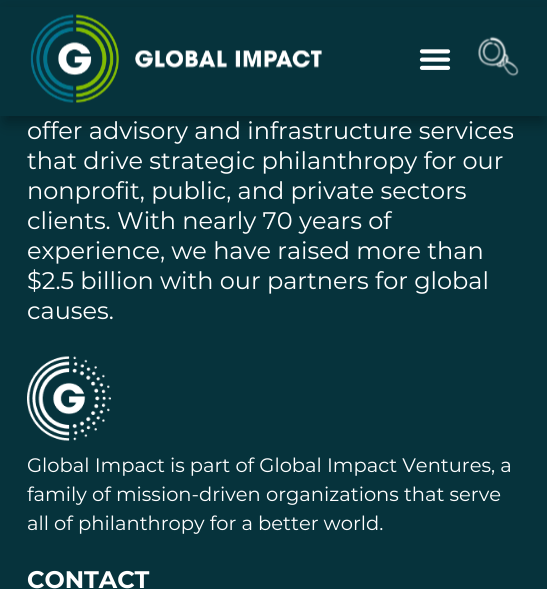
#include <cairo.h>
#include <math.h>
#include <stddef.h>

static cairo_t *ctx;

static void use_color(int r, int g, int b) {
    cairo_set_source_rgb(ctx, r / 255.0, g / 255.0, b / 255.0);
}

static void round_rect(double x, double y, double w, double h, double r) {
    cairo_new_sub_path(ctx);
    cairo_arc(ctx, x + w - r, y + h - r, r, 0, M_PI / 2);
    cairo_arc(ctx, x + r, y + h - r, r, M_PI / 2, M_PI);
    cairo_arc(ctx, x + r, y + r, r, M_PI, 1.5 * M_PI);
    cairo_arc(ctx, x + w - r, y + r, r, 1.5 * M_PI, 2 * M_PI);
    cairo_close_path(ctx);
}

static void shadow(double x, double y, double w, double h, double r, double blur, double alpha) {
    cairo_push_group_with_content(ctx, CAIRO_CONTENT_ALPHA);
    cairo_set_operator(ctx, CAIRO_OPERATOR_SOURCE);
    for (int i = 15; i >= -15 && fmin(w, h) + blur * i / 3 > 0; i -= 2) {
        double e = blur * i / 6;
        cairo_set_source_rgba(ctx, 0, 0, 0, alpha * erfc((i - 1) / 8.5) / 2);
        round_rect(x - e, y - e, w + 2 * e, h + 2 * e, fmax(0, fmin(r + e + blur * .6, fmin(w, h) / 2 + e)));
        cairo_fill(ctx);
    }
    cairo_pattern_t *soft = cairo_pop_group(ctx);
    cairo_mask(ctx, soft);
    cairo_pattern_destroy(soft);
}

static void picture(const char *path, double x, double y, double w, double h) {
    cairo_surface_t *image = cairo_image_surface_create_from_png(path);
    cairo_save(ctx);
    cairo_set_source_surface(ctx, image, x, y);
    cairo_rectangle(ctx, x, y, w, h);
    cairo_fill(ctx);
    cairo_restore(ctx);
    cairo_surface_destroy(image);
}

int main(void) {
    cairo_surface_t *surface = cairo_image_surface_create(CAIRO_FORMAT_RGB24, 547, 589);
    ctx = cairo_create(surface);
    cairo_font_options_t *options = cairo_font_options_create();
    cairo_font_options_set_hint_metrics(options, CAIRO_HINT_METRICS_OFF);
    cairo_font_options_set_hint_style(options, CAIRO_HINT_STYLE_NONE);
    cairo_set_font_options(ctx, options);
    cairo_set_miter_limit(ctx, 4);
    use_color(6, 51, 60);
    cairo_paint(ctx);
    use_color(0, 0, 0);
    shadow(5, 15, 538, 107, 0, 7.5, 0.33);
    use_color(6, 51, 60);
    cairo_rectangle(ctx, 0, 7, 547, 109);
    cairo_fill(ctx);
    picture("img1.png", 30, 14, 292, 89);
    picture("img2.png", 419, 49, 32, 21);
    picture("img3.png", 478, 36, 41, 41);
    cairo_select_font_face(ctx, "Montserrat", CAIRO_FONT_SLANT_NORMAL, CAIRO_FONT_WEIGHT_NORMAL);
    cairo_set_font_size(ctx, 24);
    use_color(255, 255, 255);
    cairo_move_to(ctx, 27, 139);
    cairo_show_text(ctx, "offer advisory and infrastructure services");
    cairo_move_to(ctx, 27, 169);
    cairo_show_text(ctx, "that drive strategic philanthropy for our");
    cairo_move_to(ctx, 27, 199);
    cairo_show_text(ctx, "nonprofit, public, and private sectors");
    cairo_move_to(ctx, 27, 229);
    cairo_show_text(ctx, "clients. With nearly 70 years of");
    cairo_move_to(ctx, 27, 259);
    cairo_show_text(ctx, "experience, we have raised more than");
    cairo_move_to(ctx, 27, 289);
    cairo_show_text(ctx, "$2.5 billion with our partners for global");
    cairo_move_to(ctx, 27, 319);
    cairo_show_text(ctx, "causes.");
    picture("img4.png", 27, 356, 84, 85);
    cairo_set_font_size(ctx, 19.5);
    cairo_move_to(ctx, 27, 472);
    cairo_show_text(ctx, "Global Impact is part of Global Impact Ventures, a");
    cairo_move_to(ctx, 27, 501);
    cairo_show_text(ctx, "family of mission-driven organizations that serve");
    cairo_move_to(ctx, 27, 530);
    cairo_show_text(ctx, "all of philanthropy for a better world.");
    cairo_select_font_face(ctx, "Montserrat", CAIRO_FONT_SLANT_NORMAL, CAIRO_FONT_WEIGHT_BOLD);
    cairo_set_font_size(ctx, 24);
    cairo_move_to(ctx, 27, 588);
    cairo_show_text(ctx, "CONTACT");
    cairo_surface_write_to_png(surface, "result.png");
    cairo_font_options_destroy(options);
    cairo_destroy(ctx);
    cairo_surface_destroy(surface);
    return 0;
}
